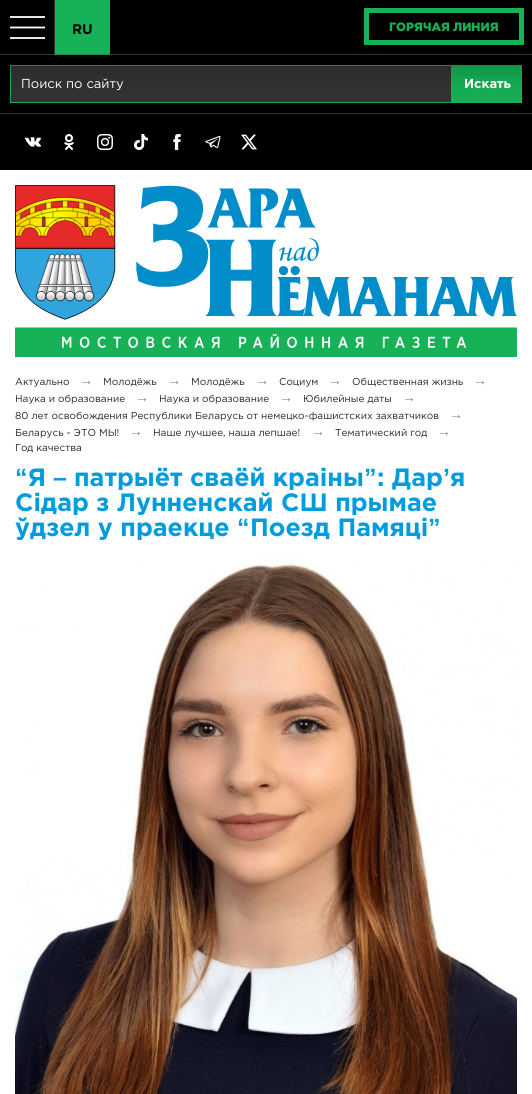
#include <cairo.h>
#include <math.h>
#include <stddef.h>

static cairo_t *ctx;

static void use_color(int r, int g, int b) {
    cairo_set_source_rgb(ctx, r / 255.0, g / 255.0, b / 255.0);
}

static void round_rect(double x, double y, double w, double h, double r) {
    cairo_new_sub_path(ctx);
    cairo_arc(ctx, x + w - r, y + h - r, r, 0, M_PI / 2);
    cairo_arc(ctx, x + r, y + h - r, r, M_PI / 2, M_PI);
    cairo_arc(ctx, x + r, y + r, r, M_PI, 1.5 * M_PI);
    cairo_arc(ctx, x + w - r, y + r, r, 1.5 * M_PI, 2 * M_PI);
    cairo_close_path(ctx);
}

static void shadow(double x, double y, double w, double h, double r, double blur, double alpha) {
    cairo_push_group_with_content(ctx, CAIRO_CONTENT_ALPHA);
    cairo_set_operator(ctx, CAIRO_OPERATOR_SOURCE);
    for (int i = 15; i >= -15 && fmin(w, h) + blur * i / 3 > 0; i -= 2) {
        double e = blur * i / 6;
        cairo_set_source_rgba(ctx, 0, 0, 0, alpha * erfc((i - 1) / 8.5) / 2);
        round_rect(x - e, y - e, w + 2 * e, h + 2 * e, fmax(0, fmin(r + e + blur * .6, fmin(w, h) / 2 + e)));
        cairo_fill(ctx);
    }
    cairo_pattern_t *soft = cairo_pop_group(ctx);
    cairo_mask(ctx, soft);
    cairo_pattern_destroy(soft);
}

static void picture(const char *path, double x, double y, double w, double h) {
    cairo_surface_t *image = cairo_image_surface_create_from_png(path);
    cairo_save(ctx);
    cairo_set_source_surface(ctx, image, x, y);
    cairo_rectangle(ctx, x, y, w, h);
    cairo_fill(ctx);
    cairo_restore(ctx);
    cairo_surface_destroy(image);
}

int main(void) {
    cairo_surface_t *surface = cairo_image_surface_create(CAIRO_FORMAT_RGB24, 532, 1094);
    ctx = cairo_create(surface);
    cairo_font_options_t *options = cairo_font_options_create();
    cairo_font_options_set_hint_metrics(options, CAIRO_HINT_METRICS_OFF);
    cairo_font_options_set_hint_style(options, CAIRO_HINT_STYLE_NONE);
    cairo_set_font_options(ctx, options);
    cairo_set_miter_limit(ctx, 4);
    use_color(255, 255, 255);
    cairo_paint(ctx);
    use_color(0, 0, 0);
    cairo_rectangle(ctx, 0, 0, 532, 170);
    cairo_fill(ctx);
    use_color(51, 51, 51);
    cairo_rectangle(ctx, 54, 0, 1, 55);
    cairo_fill(ctx);
    cairo_rectangle(ctx, 0, 113, 532, 1);
    cairo_fill(ctx);
    cairo_rectangle(ctx, 10.5, 65.5, 441, 37);
    cairo_fill_preserve(ctx);
    use_color(23, 178, 87);
    cairo_set_line_width(ctx, 1);
    cairo_stroke(ctx);
    cairo_rectangle(ctx, 452, 65, 70, 38);
    cairo_fill(ctx);
    cairo_save(ctx);
    cairo_rectangle(ctx, 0, 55, 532, 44);
    cairo_clip(ctx);
    use_color(0, 0, 0);
    shadow(0, 0, 532, 55, 0, 25, 0.5);
    cairo_restore(ctx);
    cairo_rectangle(ctx, 55, 0, 55, 54);
    cairo_fill(ctx);
    use_color(51, 51, 51);
    cairo_rectangle(ctx, 0, 54, 532, 1);
    cairo_fill(ctx);
    use_color(18, 142, 70);
    cairo_rectangle(ctx, 55, 54, 55, 1);
    cairo_fill(ctx);
    cairo_select_font_face(ctx, "Gotham", CAIRO_FONT_SLANT_NORMAL, CAIRO_FONT_WEIGHT_BOLD);
    cairo_set_font_size(ctx, 14);
    use_color(0, 0, 0);
    cairo_move_to(ctx, 72, 34);
    cairo_show_text(ctx, "RU");
    use_color(92, 92, 92);
    cairo_rectangle(ctx, 54, 54, 1, 1);
    cairo_fill(ctx);
    picture("img1.png", 10, 16, 35, 23);
    cairo_rectangle(ctx, 366.5, 10.5, 155, 32);
    use_color(23, 178, 87);
    cairo_set_line_width(ctx, 5);
    cairo_stroke(ctx);
    cairo_select_font_face(ctx, "Gotham Black", CAIRO_FONT_SLANT_NORMAL, CAIRO_FONT_WEIGHT_NORMAL);
    cairo_set_font_size(ctx, 12);
    cairo_move_to(ctx, 389, 31);
    cairo_show_text(ctx, "ГОРЯЧАЯ ЛИНИЯ");
    cairo_select_font_face(ctx, "Gotham", CAIRO_FONT_SLANT_NORMAL, CAIRO_FONT_WEIGHT_NORMAL);
    cairo_set_font_size(ctx, 13);
    use_color(255, 255, 255);
    cairo_move_to(ctx, 21, 88);
    cairo_show_text(ctx, "Поиск по сайту");
    cairo_select_font_face(ctx, "Gotham", CAIRO_FONT_SLANT_NORMAL, CAIRO_FONT_WEIGHT_BOLD);
    cairo_move_to(ctx, 464, 88);
    cairo_show_text(ctx, "Искать");
    picture("img2.png", 25, 137, 16, 10);
    picture("img3.png", 64, 134, 10, 16);
    picture("img4.png", 97, 134, 16, 16);
    picture("img5.png", 134, 134, 14, 16);
    picture("img6.png", 173, 134, 8, 16);
    picture("img7.png", 205, 136, 16, 12);
    picture("img8.png", 241, 134, 16, 16);
    picture("img9.png", 15, 185, 502, 172);
    cairo_select_font_face(ctx, "Gotham", CAIRO_FONT_SLANT_NORMAL, CAIRO_FONT_WEIGHT_NORMAL);
    cairo_set_font_size(ctx, 10);
    use_color(37, 37, 37);
    cairo_move_to(ctx, 15, 385);
    cairo_show_text(ctx, "Актуально");
    cairo_select_font_face(ctx, "Liberation Sans", CAIRO_FONT_SLANT_NORMAL, CAIRO_FONT_WEIGHT_NORMAL);
    cairo_set_font_size(ctx, 14);
    use_color(137, 137, 137);
    cairo_move_to(ctx, 79, 385);
    cairo_show_text(ctx, "→");
    cairo_select_font_face(ctx, "Gotham", CAIRO_FONT_SLANT_NORMAL, CAIRO_FONT_WEIGHT_NORMAL);
    cairo_set_font_size(ctx, 10);
    use_color(37, 37, 37);
    cairo_move_to(ctx, 103, 385);
    cairo_show_text(ctx, "Молодёжь");
    cairo_select_font_face(ctx, "Liberation Sans", CAIRO_FONT_SLANT_NORMAL, CAIRO_FONT_WEIGHT_NORMAL);
    cairo_set_font_size(ctx, 14);
    use_color(137, 137, 137);
    cairo_move_to(ctx, 167, 385);
    cairo_show_text(ctx, "→");
    cairo_select_font_face(ctx, "Gotham", CAIRO_FONT_SLANT_NORMAL, CAIRO_FONT_WEIGHT_NORMAL);
    cairo_set_font_size(ctx, 10);
    use_color(37, 37, 37);
    cairo_move_to(ctx, 191, 385);
    cairo_show_text(ctx, "Молодёжь");
    cairo_select_font_face(ctx, "Liberation Sans", CAIRO_FONT_SLANT_NORMAL, CAIRO_FONT_WEIGHT_NORMAL);
    cairo_set_font_size(ctx, 14);
    use_color(137, 137, 137);
    cairo_move_to(ctx, 255, 385);
    cairo_show_text(ctx, "→");
    cairo_select_font_face(ctx, "Gotham", CAIRO_FONT_SLANT_NORMAL, CAIRO_FONT_WEIGHT_NORMAL);
    cairo_set_font_size(ctx, 10);
    use_color(37, 37, 37);
    cairo_move_to(ctx, 279, 385);
    cairo_show_text(ctx, "Социум");
    cairo_select_font_face(ctx, "Liberation Sans", CAIRO_FONT_SLANT_NORMAL, CAIRO_FONT_WEIGHT_NORMAL);
    cairo_set_font_size(ctx, 14);
    use_color(137, 137, 137);
    cairo_move_to(ctx, 328, 385);
    cairo_show_text(ctx, "→");
    cairo_select_font_face(ctx, "Gotham", CAIRO_FONT_SLANT_NORMAL, CAIRO_FONT_WEIGHT_NORMAL);
    cairo_set_font_size(ctx, 10);
    use_color(37, 37, 37);
    cairo_move_to(ctx, 352, 385);
    cairo_show_text(ctx, "Общественная жизнь");
    cairo_select_font_face(ctx, "Liberation Sans", CAIRO_FONT_SLANT_NORMAL, CAIRO_FONT_WEIGHT_NORMAL);
    cairo_set_font_size(ctx, 14);
    use_color(137, 137, 137);
    cairo_move_to(ctx, 473, 385);
    cairo_show_text(ctx, "→");
    cairo_select_font_face(ctx, "Gotham", CAIRO_FONT_SLANT_NORMAL, CAIRO_FONT_WEIGHT_NORMAL);
    cairo_set_font_size(ctx, 10);
    use_color(37, 37, 37);
    cairo_move_to(ctx, 15, 402);
    cairo_show_text(ctx, "Наука и образование");
    cairo_select_font_face(ctx, "Liberation Sans", CAIRO_FONT_SLANT_NORMAL, CAIRO_FONT_WEIGHT_NORMAL);
    cairo_set_font_size(ctx, 14);
    use_color(137, 137, 137);
    cairo_move_to(ctx, 135, 402);
    cairo_show_text(ctx, "→");
    cairo_select_font_face(ctx, "Gotham", CAIRO_FONT_SLANT_NORMAL, CAIRO_FONT_WEIGHT_NORMAL);
    cairo_set_font_size(ctx, 10);
    use_color(37, 37, 37);
    cairo_move_to(ctx, 159, 402);
    cairo_show_text(ctx, "Наука и образование");
    cairo_select_font_face(ctx, "Liberation Sans", CAIRO_FONT_SLANT_NORMAL, CAIRO_FONT_WEIGHT_NORMAL);
    cairo_set_font_size(ctx, 14);
    use_color(137, 137, 137);
    cairo_move_to(ctx, 279, 402);
    cairo_show_text(ctx, "→");
    cairo_select_font_face(ctx, "Gotham", CAIRO_FONT_SLANT_NORMAL, CAIRO_FONT_WEIGHT_NORMAL);
    cairo_set_font_size(ctx, 10);
    use_color(37, 37, 37);
    cairo_move_to(ctx, 303, 402);
    cairo_show_text(ctx, "Юбилейные даты");
    cairo_select_font_face(ctx, "Liberation Sans", CAIRO_FONT_SLANT_NORMAL, CAIRO_FONT_WEIGHT_NORMAL);
    cairo_set_font_size(ctx, 14);
    use_color(137, 137, 137);
    cairo_move_to(ctx, 402, 402);
    cairo_show_text(ctx, "→");
    cairo_select_font_face(ctx, "Gotham", CAIRO_FONT_SLANT_NORMAL, CAIRO_FONT_WEIGHT_NORMAL);
    cairo_set_font_size(ctx, 10);
    use_color(37, 37, 37);
    cairo_move_to(ctx, 15, 419);
    cairo_show_text(ctx, "80 лет освобождения Республики Беларусь от немецко-фашистских захватчиков");
    cairo_select_font_face(ctx, "Liberation Sans", CAIRO_FONT_SLANT_NORMAL, CAIRO_FONT_WEIGHT_NORMAL);
    cairo_set_font_size(ctx, 14);
    use_color(137, 137, 137);
    cairo_move_to(ctx, 449, 419);
    cairo_show_text(ctx, "→");
    cairo_select_font_face(ctx, "Gotham", CAIRO_FONT_SLANT_NORMAL, CAIRO_FONT_WEIGHT_NORMAL);
    cairo_set_font_size(ctx, 10);
    use_color(37, 37, 37);
    cairo_move_to(ctx, 15, 436);
    cairo_show_text(ctx, "Беларусь - ЭТО МЫ!");
    cairo_select_font_face(ctx, "Liberation Sans", CAIRO_FONT_SLANT_NORMAL, CAIRO_FONT_WEIGHT_NORMAL);
    cairo_set_font_size(ctx, 14);
    use_color(137, 137, 137);
    cairo_move_to(ctx, 129, 436);
    cairo_show_text(ctx, "→");
    cairo_select_font_face(ctx, "Gotham", CAIRO_FONT_SLANT_NORMAL, CAIRO_FONT_WEIGHT_NORMAL);
    cairo_set_font_size(ctx, 10);
    use_color(37, 37, 37);
    cairo_move_to(ctx, 153, 436);
    cairo_show_text(ctx, "Наше лучшее, наша лепшае!");
    cairo_select_font_face(ctx, "Liberation Sans", CAIRO_FONT_SLANT_NORMAL, CAIRO_FONT_WEIGHT_NORMAL);
    cairo_set_font_size(ctx, 14);
    use_color(137, 137, 137);
    cairo_move_to(ctx, 311, 436);
    cairo_show_text(ctx, "→");
    cairo_select_font_face(ctx, "Gotham", CAIRO_FONT_SLANT_NORMAL, CAIRO_FONT_WEIGHT_NORMAL);
    cairo_set_font_size(ctx, 10);
    use_color(37, 37, 37);
    cairo_move_to(ctx, 335, 436);
    cairo_show_text(ctx, "Тематический год");
    cairo_select_font_face(ctx, "Liberation Sans", CAIRO_FONT_SLANT_NORMAL, CAIRO_FONT_WEIGHT_NORMAL);
    cairo_set_font_size(ctx, 14);
    use_color(137, 137, 137);
    cairo_move_to(ctx, 437, 436);
    cairo_show_text(ctx, "→");
    cairo_select_font_face(ctx, "Gotham", CAIRO_FONT_SLANT_NORMAL, CAIRO_FONT_WEIGHT_NORMAL);
    cairo_set_font_size(ctx, 10);
    use_color(37, 37, 37);
    cairo_move_to(ctx, 15, 451);
    cairo_show_text(ctx, "Год качества");
    cairo_select_font_face(ctx, "Liberation Sans", CAIRO_FONT_SLANT_NORMAL, CAIRO_FONT_WEIGHT_BOLD);
    cairo_set_font_size(ctx, 25);
    use_color(0, 156, 222);
    cairo_move_to(ctx, 15, 486);
    cairo_show_text(ctx, "“");
    cairo_select_font_face(ctx, "Gotham", CAIRO_FONT_SLANT_NORMAL, CAIRO_FONT_WEIGHT_BOLD);
    cairo_move_to(ctx, 28, 486);
    cairo_show_text(ctx, "Я");
    cairo_select_font_face(ctx, "Liberation Sans", CAIRO_FONT_SLANT_NORMAL, CAIRO_FONT_WEIGHT_BOLD);
    cairo_move_to(ctx, 53, 486);
    cairo_show_text(ctx, "–");
    cairo_select_font_face(ctx, "Gotham", CAIRO_FONT_SLANT_NORMAL, CAIRO_FONT_WEIGHT_BOLD);
    cairo_move_to(ctx, 74, 486);
    cairo_show_text(ctx, "патрыёт сваёй краіны");
    cairo_select_font_face(ctx, "Liberation Sans", CAIRO_FONT_SLANT_NORMAL, CAIRO_FONT_WEIGHT_BOLD);
    cairo_move_to(ctx, 364, 486);
    cairo_show_text(ctx, "”");
    cairo_select_font_face(ctx, "Gotham", CAIRO_FONT_SLANT_NORMAL, CAIRO_FONT_WEIGHT_BOLD);
    cairo_move_to(ctx, 377, 486);
    cairo_show_text(ctx, ": Дар");
    cairo_select_font_face(ctx, "Liberation Sans", CAIRO_FONT_SLANT_NORMAL, CAIRO_FONT_WEIGHT_BOLD);
    cairo_move_to(ctx, 443, 486);
    cairo_show_text(ctx, "’");
    cairo_select_font_face(ctx, "Gotham", CAIRO_FONT_SLANT_NORMAL, CAIRO_FONT_WEIGHT_BOLD);
    cairo_move_to(ctx, 450, 486);
    cairo_show_text(ctx, "я");
    cairo_move_to(ctx, 15, 511);
    cairo_show_text(ctx, "Сідар з Лунненскай СШ прымае");
    cairo_move_to(ctx, 15, 536);
    cairo_show_text(ctx, "ўдзел у праекце");
    cairo_select_font_face(ctx, "Liberation Sans", CAIRO_FONT_SLANT_NORMAL, CAIRO_FONT_WEIGHT_BOLD);
    cairo_move_to(ctx, 237, 536);
    cairo_show_text(ctx, "“");
    cairo_select_font_face(ctx, "Gotham", CAIRO_FONT_SLANT_NORMAL, CAIRO_FONT_WEIGHT_BOLD);
    cairo_move_to(ctx, 250, 536);
    cairo_show_text(ctx, "Поезд Памяці");
    cairo_select_font_face(ctx, "Liberation Sans", CAIRO_FONT_SLANT_NORMAL, CAIRO_FONT_WEIGHT_BOLD);
    cairo_move_to(ctx, 428, 536);
    cairo_show_text(ctx, "”");
    picture("img10.png", 15, 557, 502, 537);
    cairo_surface_write_to_png(surface, "result.png");
    cairo_font_options_destroy(options);
    cairo_destroy(ctx);
    cairo_surface_destroy(surface);
    return 0;
}
